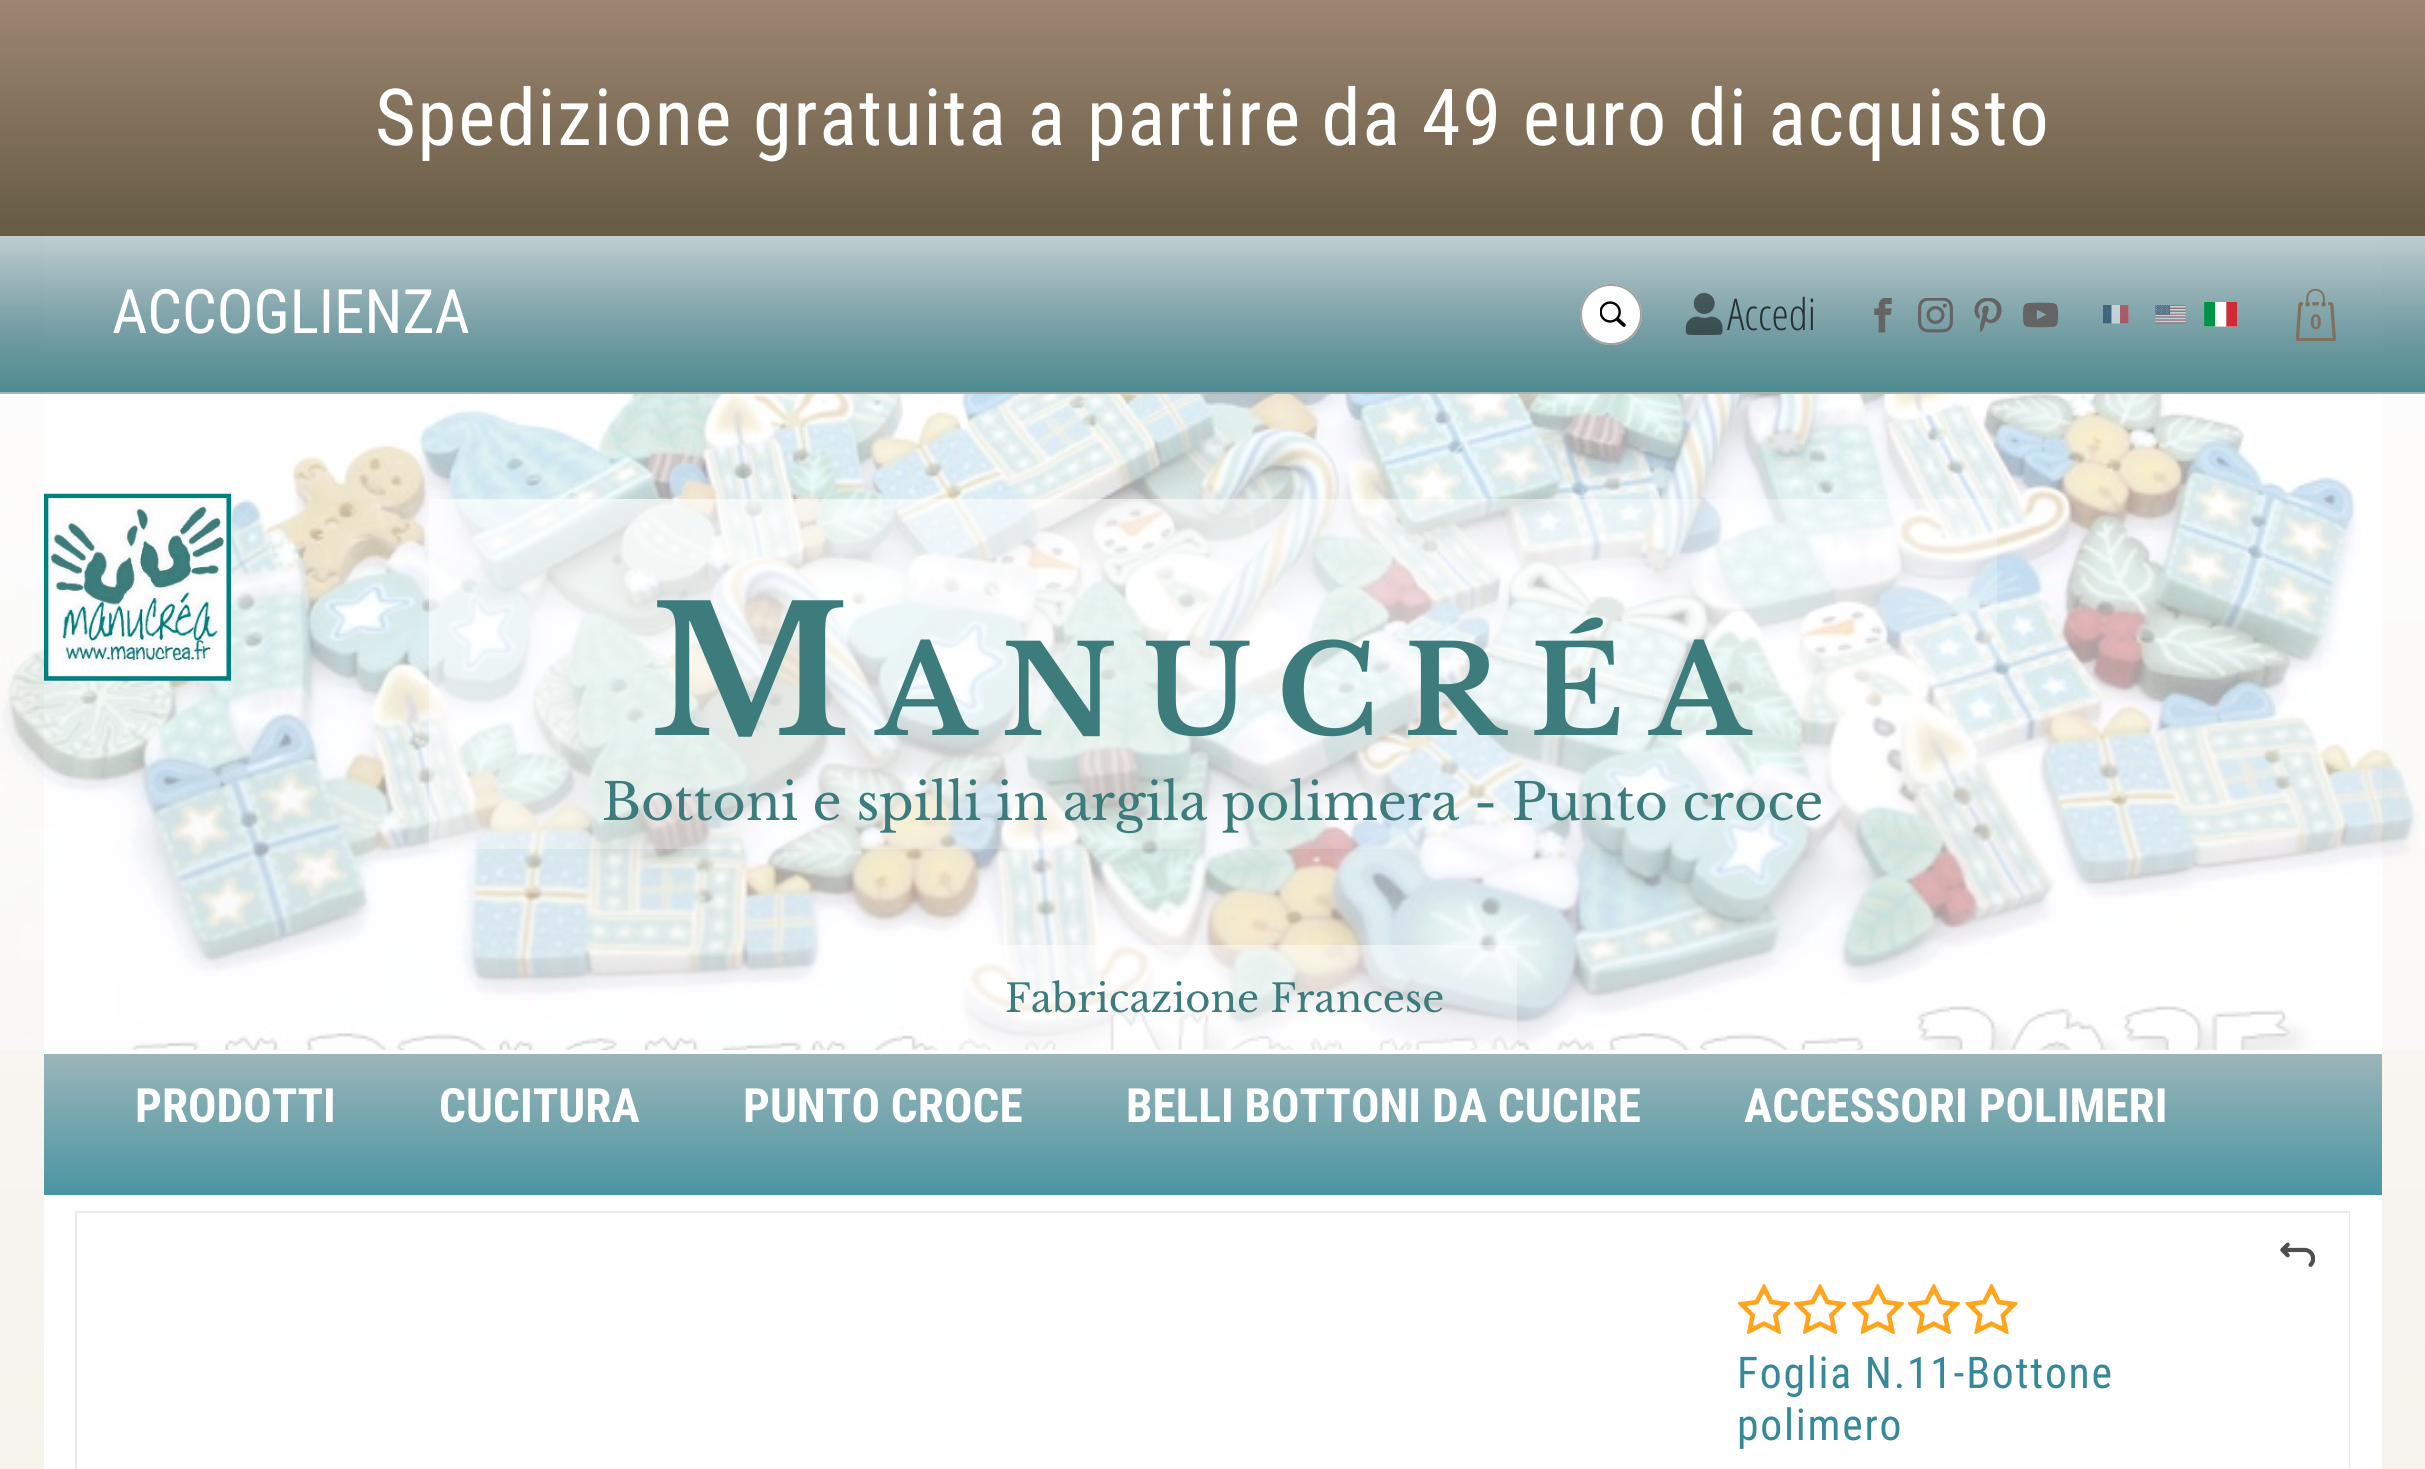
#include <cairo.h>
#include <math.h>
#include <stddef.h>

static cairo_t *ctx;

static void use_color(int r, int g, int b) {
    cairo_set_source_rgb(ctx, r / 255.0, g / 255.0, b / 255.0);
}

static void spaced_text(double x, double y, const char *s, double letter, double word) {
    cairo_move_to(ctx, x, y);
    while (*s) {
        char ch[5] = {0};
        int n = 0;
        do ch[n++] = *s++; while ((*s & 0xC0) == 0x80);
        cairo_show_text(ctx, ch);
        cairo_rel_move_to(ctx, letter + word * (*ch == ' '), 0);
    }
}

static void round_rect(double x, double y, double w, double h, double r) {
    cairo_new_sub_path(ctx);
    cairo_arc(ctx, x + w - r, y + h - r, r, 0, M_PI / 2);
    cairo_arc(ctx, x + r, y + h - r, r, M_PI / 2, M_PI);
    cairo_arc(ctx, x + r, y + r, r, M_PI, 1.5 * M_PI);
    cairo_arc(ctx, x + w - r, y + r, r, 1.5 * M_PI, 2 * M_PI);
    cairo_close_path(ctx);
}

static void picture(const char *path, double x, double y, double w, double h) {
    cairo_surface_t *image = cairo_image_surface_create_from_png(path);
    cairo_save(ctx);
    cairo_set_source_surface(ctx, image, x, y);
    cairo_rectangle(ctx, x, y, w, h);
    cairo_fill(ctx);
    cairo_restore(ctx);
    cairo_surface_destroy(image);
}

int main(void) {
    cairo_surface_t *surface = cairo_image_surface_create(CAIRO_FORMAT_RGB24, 2425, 1469);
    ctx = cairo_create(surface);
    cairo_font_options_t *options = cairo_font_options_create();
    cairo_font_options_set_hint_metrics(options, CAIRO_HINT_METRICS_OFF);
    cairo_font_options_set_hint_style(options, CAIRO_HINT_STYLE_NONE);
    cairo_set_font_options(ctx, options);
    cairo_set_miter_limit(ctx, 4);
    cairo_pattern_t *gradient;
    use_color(255, 255, 255);
    cairo_paint(ctx);
    gradient = cairo_pattern_create_linear(1213, 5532, 1213, 0);
    cairo_pattern_add_color_stop_rgba(gradient, 0, 0.863, 0.808, 0.722, 1);
    cairo_pattern_add_color_stop_rgba(gradient, 1, 1, 1, 1, 1);
    cairo_set_source(ctx, gradient);
    cairo_pattern_destroy(gradient);
    cairo_rectangle(ctx, 0, 195, 2425, 1274);
    cairo_fill(ctx);
    gradient = cairo_pattern_create_linear(1213, 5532, 1213, 0);
    cairo_pattern_add_color_stop_rgba(gradient, 0, 0.737, 0.706, 0.651, 1);
    cairo_pattern_add_color_stop_rgba(gradient, 1, 0.82, 0.82, 0.82, 1);
    cairo_set_source(ctx, gradient);
    cairo_pattern_destroy(gradient);
    cairo_rectangle(ctx, 0, 392, 2425, 2);
    cairo_fill(ctx);
    gradient = cairo_pattern_create_linear(1213, -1.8, 1213, 236);
    cairo_pattern_add_color_stop_rgba(gradient, 0, 0.62, 0.529, 0.447, 1);
    cairo_pattern_add_color_stop_rgba(gradient, 1, 0.392, 0.349, 0.259, 0.99);
    cairo_set_source(ctx, gradient);
    cairo_pattern_destroy(gradient);
    cairo_rectangle(ctx, 0, 0, 2425, 236);
    cairo_fill(ctx);
    cairo_select_font_face(ctx, "Roboto Condensed", CAIRO_FONT_SLANT_NORMAL, CAIRO_FONT_WEIGHT_NORMAL);
    cairo_set_font_size(ctx, 78.75);
    use_color(255, 255, 255);
    spaced_text(375, 145, "Spedizione gratuita a partire da 49 euro di acquisto", 1.75, 0);
    cairo_rectangle(ctx, 44, 236, 2338, 818);
    cairo_fill(ctx);
    use_color(209, 209, 209);
    cairo_rectangle(ctx, 44, 392, 2338, 2);
    cairo_fill(ctx);
    gradient = cairo_pattern_create_linear(1213, 392, 1213, 236);
    cairo_pattern_add_color_stop_rgba(gradient, 0, 0.302, 0.545, 0.569, 1);
    cairo_pattern_add_color_stop_rgba(gradient, 1, 0.192, 0.384, 0.424, 0.31);
    cairo_set_source(ctx, gradient);
    cairo_pattern_destroy(gradient);
    cairo_rectangle(ctx, 0, 236, 2425, 156);
    cairo_fill(ctx);
    gradient = cairo_pattern_create_linear(1213, 548, 1213, 392);
    cairo_pattern_add_color_stop_rgba(gradient, 0, 0.4, 0.545, 0.561, 1);
    cairo_pattern_add_color_stop_rgba(gradient, 1, 0.333, 0.451, 0.475, 0.31);
    cairo_set_source(ctx, gradient);
    cairo_pattern_destroy(gradient);
    cairo_rectangle(ctx, 0, 392, 2425, 2);
    cairo_fill(ctx);
    cairo_set_font_size(ctx, 61.25);
    use_color(255, 255, 255);
    cairo_move_to(ctx, 112, 333);
    cairo_show_text(ctx, "ACCOGLIENZA");
    round_rect(1580, 284, 62, 61, 30.5);
    cairo_fill(ctx);
    round_rect(1581, 285, 60, 59, 29.5);
    cairo_set_source_rgba(ctx, 0.478, 0.478, 0.478, 0.7);
    cairo_stroke(ctx);
    picture("img1.png", 1600, 301, 26, 26);
    picture("img2.png", 1685, 292, 38, 43);
    cairo_select_font_face(ctx, "Open Sans Condensed Light", CAIRO_FONT_SLANT_NORMAL, CAIRO_FONT_WEIGHT_NORMAL);
    cairo_set_font_size(ctx, 43.75);
    use_color(38, 49, 51);
    cairo_move_to(ctx, 1727, 330);
    cairo_show_text(ctx, "Accedi");
    picture("img3.png", 1874, 298, 18, 35);
    picture("img4.png", 1918, 298, 35, 35);
    picture("img5.png", 1974, 298, 28, 35);
    picture("img6.png", 2023, 302, 35, 26);
    picture("img7.png", 2103, 305, 26, 19);
    picture("img8.png", 2155, 305, 31, 19);
    picture("img9.png", 2204, 302, 34, 25);
    picture("img10.png", 2295, 289, 41, 52);
    cairo_select_font_face(ctx, "Liberation Sans", CAIRO_FONT_SLANT_NORMAL, CAIRO_FONT_WEIGHT_BOLD);
    cairo_set_font_size(ctx, 21);
    use_color(126, 112, 90);
    cairo_move_to(ctx, 2310, 329);
    cairo_show_text(ctx, "0");
    picture("img11.png", 0, 394, 2425, 656);
    picture("img12.png", 43, 493, 188, 188);
    gradient = cairo_pattern_create_linear(1138, 340, 1287, 1007);
    cairo_pattern_add_color_stop_rgba(gradient, 0, 1, 1, 1, 0.7);
    cairo_pattern_add_color_stop_rgba(gradient, 1, 1, 1, 1, 0);
    cairo_set_source(ctx, gradient);
    cairo_pattern_destroy(gradient);
    cairo_rectangle(ctx, 429, 499, 1568, 350);
    cairo_fill(ctx);
    cairo_select_font_face(ctx, "Libre Baskerville", CAIRO_FONT_SLANT_NORMAL, CAIRO_FONT_WEIGHT_BOLD);
    cairo_set_font_size(ctx, 175);
    use_color(61, 124, 124);
    spaced_text(650, 735, "M", 26.25, 0);
    cairo_set_font_size(ctx, 122.5);
    spaced_text(876, 735, "ANUCRÉA", 26.25, 0);
    cairo_select_font_face(ctx, "Libre Baskerville", CAIRO_FONT_SLANT_NORMAL, CAIRO_FONT_WEIGHT_NORMAL);
    cairo_set_font_size(ctx, 50.75);
    cairo_move_to(ctx, 602, 820);
    cairo_show_text(ctx, "Bottoni e spilli in argila polimera - Punto croce");
    gradient = cairo_pattern_create_linear(1206, 894, 1244, 1104);
    cairo_pattern_add_color_stop_rgba(gradient, 0, 1, 1, 1, 0.6);
    cairo_pattern_add_color_stop_rgba(gradient, 1, 1, 1, 1, 0.3);
    cairo_set_source(ctx, gradient);
    cairo_pattern_destroy(gradient);
    cairo_rectangle(ctx, 933, 945, 584, 105);
    cairo_fill(ctx);
    cairo_set_font_size(ctx, 38.5);
    use_color(61, 124, 124);
    cairo_move_to(ctx, 1005, 1012);
    cairo_show_text(ctx, "Fabricazione Francese");
    gradient = cairo_pattern_create_linear(1213, 1195, 1213, 1054);
    cairo_pattern_add_color_stop_rgba(gradient, 0, 0.29, 0.584, 0.635, 1);
    cairo_pattern_add_color_stop_rgba(gradient, 1, 0.608, 0.71, 0.725, 1);
    cairo_set_source(ctx, gradient);
    cairo_pattern_destroy(gradient);
    cairo_rectangle(ctx, 44, 1054, 2338, 141);
    cairo_fill(ctx);
    cairo_select_font_face(ctx, "Roboto Condensed", CAIRO_FONT_SLANT_NORMAL, CAIRO_FONT_WEIGHT_BOLD);
    cairo_set_font_size(ctx, 47.25);
    use_color(255, 255, 255);
    cairo_move_to(ctx, 135, 1122);
    cairo_show_text(ctx, "PRODOTTI");
    cairo_move_to(ctx, 439, 1122);
    cairo_show_text(ctx, "CUCITURA");
    cairo_move_to(ctx, 743, 1122);
    cairo_show_text(ctx, "PUNTO CROCE");
    cairo_move_to(ctx, 1126, 1122);
    cairo_show_text(ctx, "BELLI BOTTONI DA CUCIRE");
    cairo_move_to(ctx, 1744, 1122);
    cairo_show_text(ctx, "ACCESSORI POLIMERI");
    cairo_rectangle(ctx, 44, 1195, 2338, 274);
    cairo_fill(ctx);
    cairo_rectangle(ctx, 76, 1212, 2273, 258);
    use_color(233, 233, 233);
    cairo_stroke(ctx);
    picture("img13.png", 2280, 1242, 35, 25);
    use_color(255, 255, 255);
    cairo_rectangle(ctx, 2348, 1213, 1, 256);
    cairo_fill(ctx);
    picture("img14.png", 1738, 1284, 52, 50);
    picture("img14.png", 1794, 1284, 52, 50);
    picture("img15.png", 1852, 1283, 52, 52);
    picture("img15.png", 1908, 1283, 52, 52);
    picture("img16.png", 1965, 1283, 53, 52);
    cairo_select_font_face(ctx, "Roboto Condensed", CAIRO_FONT_SLANT_NORMAL, CAIRO_FONT_WEIGHT_NORMAL);
    cairo_set_font_size(ctx, 43.75);
    use_color(54, 137, 152);
    spaced_text(1737, 1388, "Foglia N.11-Bottone", 1.75, 0);
    spaced_text(1737, 1440, "polimero", 1.75, 0);
    cairo_surface_write_to_png(surface, "result.png");
    cairo_font_options_destroy(options);
    cairo_destroy(ctx);
    cairo_surface_destroy(surface);
    return 0;
}
